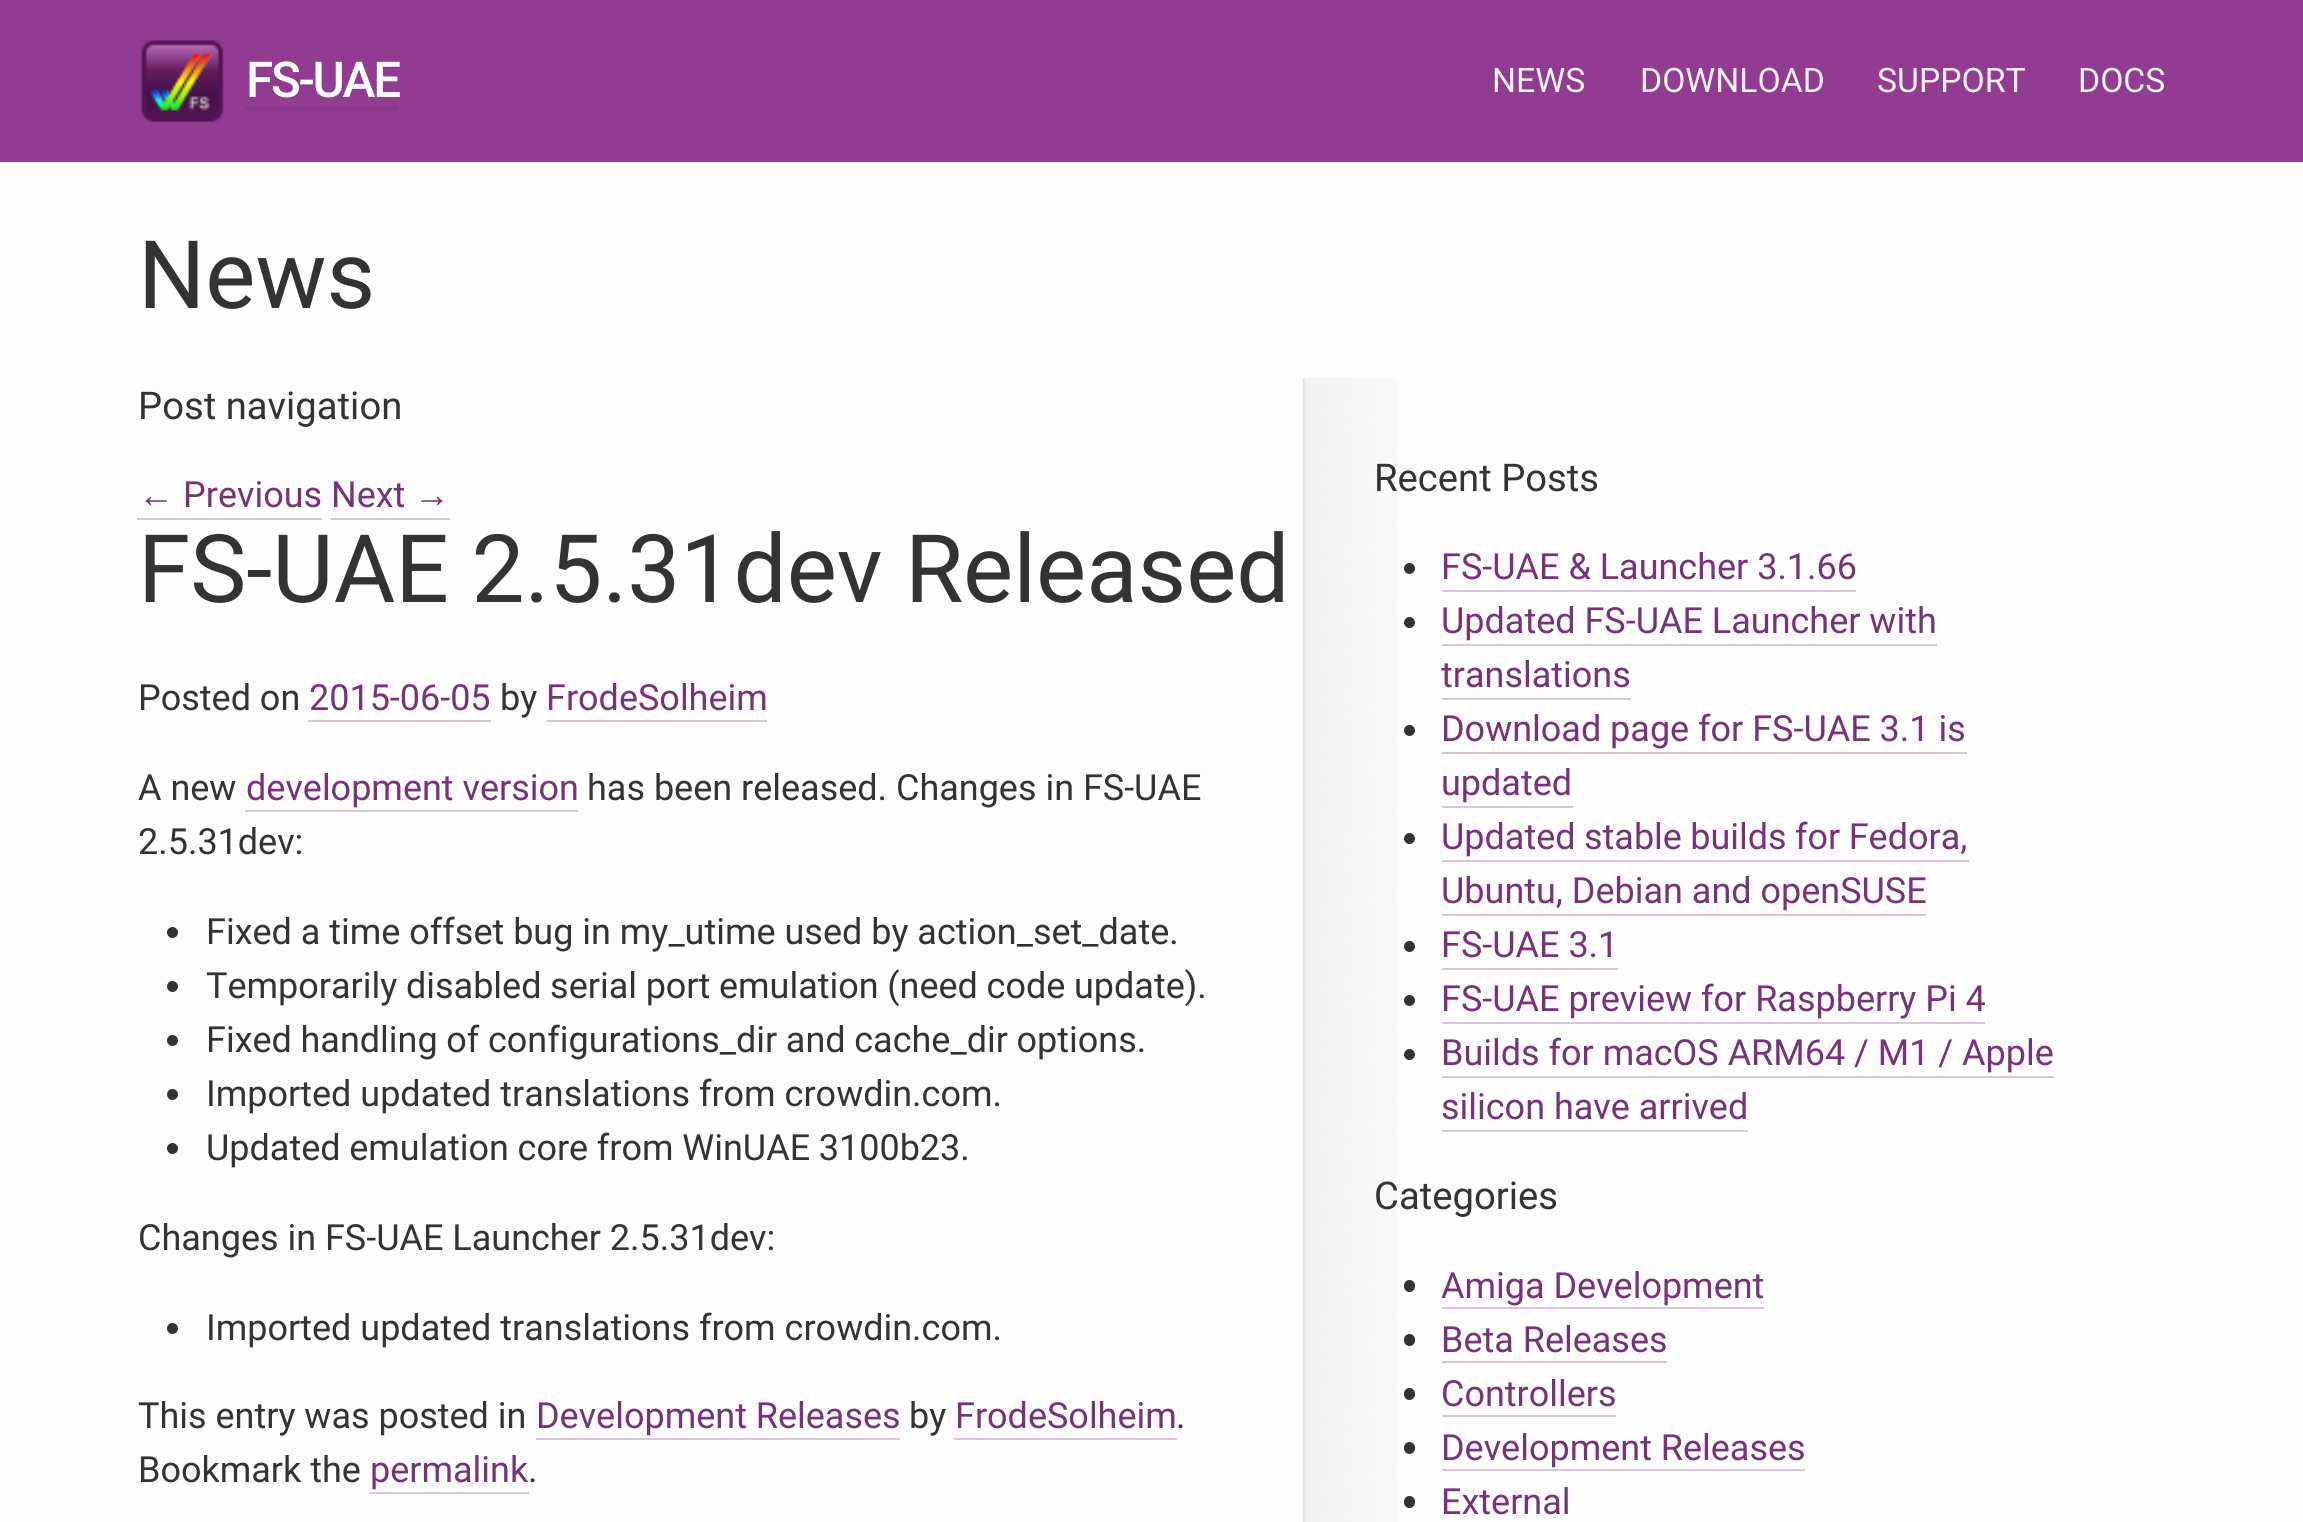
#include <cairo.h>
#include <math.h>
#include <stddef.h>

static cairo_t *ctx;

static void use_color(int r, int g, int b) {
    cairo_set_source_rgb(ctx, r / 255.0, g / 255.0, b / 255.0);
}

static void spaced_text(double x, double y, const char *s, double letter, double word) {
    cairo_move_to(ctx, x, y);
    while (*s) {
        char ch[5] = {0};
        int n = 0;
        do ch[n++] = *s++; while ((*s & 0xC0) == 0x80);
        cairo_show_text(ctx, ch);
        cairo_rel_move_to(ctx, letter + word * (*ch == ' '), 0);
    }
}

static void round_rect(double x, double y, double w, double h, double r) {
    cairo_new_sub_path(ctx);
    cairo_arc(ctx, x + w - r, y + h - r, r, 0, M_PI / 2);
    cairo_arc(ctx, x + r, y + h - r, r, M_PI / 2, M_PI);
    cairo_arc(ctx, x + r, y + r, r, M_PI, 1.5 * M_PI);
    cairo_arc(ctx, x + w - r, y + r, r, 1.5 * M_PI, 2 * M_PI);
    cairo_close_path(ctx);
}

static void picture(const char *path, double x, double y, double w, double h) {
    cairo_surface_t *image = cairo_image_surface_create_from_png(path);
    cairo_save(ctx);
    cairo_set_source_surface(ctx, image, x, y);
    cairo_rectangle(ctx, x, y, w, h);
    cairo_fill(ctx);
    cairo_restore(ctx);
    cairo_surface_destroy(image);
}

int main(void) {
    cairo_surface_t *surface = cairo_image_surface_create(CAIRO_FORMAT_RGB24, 2303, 1522);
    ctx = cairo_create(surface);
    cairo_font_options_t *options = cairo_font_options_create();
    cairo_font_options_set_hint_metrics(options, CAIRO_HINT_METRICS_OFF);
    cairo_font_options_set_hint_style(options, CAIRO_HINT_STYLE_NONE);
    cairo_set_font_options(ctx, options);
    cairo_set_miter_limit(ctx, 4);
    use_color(253, 253, 253);
    cairo_paint(ctx);
    use_color(145, 59, 145);
    cairo_rectangle(ctx, 0, 0, 2303, 162);
    cairo_fill(ctx);
    picture("img1.png", 141, 40, 83, 83);
    cairo_select_font_face(ctx, "Roboto Medium", CAIRO_FONT_SLANT_NORMAL, CAIRO_FONT_WEIGHT_NORMAL);
    cairo_set_font_size(ctx, 49.5);
    use_color(255, 255, 255);
    spaced_text(246, 97, "FS-UAE", -2.25, 0);
    use_color(138, 57, 138);
    cairo_rectangle(ctx, 245, 106, 153, 5);
    cairo_fill(ctx);
    cairo_select_font_face(ctx, "Roboto", CAIRO_FONT_SLANT_NORMAL, CAIRO_FONT_WEIGHT_NORMAL);
    cairo_set_font_size(ctx, 33.75);
    use_color(240, 240, 240);
    cairo_move_to(ctx, 1492, 92);
    cairo_show_text(ctx, "NEWS");
    cairo_move_to(ctx, 1640, 92);
    cairo_show_text(ctx, "DOWNLOAD");
    cairo_move_to(ctx, 1877, 92);
    cairo_show_text(ctx, "SUPPORT");
    cairo_move_to(ctx, 2078, 92);
    cairo_show_text(ctx, "DOCS");
    cairo_set_font_size(ctx, 94.5);
    use_color(51, 51, 51);
    cairo_move_to(ctx, 138, 308);
    cairo_show_text(ctx, "News");
    cairo_set_font_size(ctx, 38.25);
    cairo_move_to(ctx, 138, 419);
    cairo_show_text(ctx, "Post navigation");
    cairo_select_font_face(ctx, "Liberation Sans", CAIRO_FONT_SLANT_NORMAL, CAIRO_FONT_WEIGHT_NORMAL);
    cairo_set_font_size(ctx, 36);
    use_color(119, 51, 119);
    cairo_move_to(ctx, 138, 507);
    cairo_show_text(ctx, "←");
    use_color(217, 199, 217);
    cairo_rectangle(ctx, 137, 518, 185, 2);
    cairo_fill(ctx);
    cairo_select_font_face(ctx, "Roboto", CAIRO_FONT_SLANT_NORMAL, CAIRO_FONT_WEIGHT_NORMAL);
    use_color(119, 51, 119);
    cairo_move_to(ctx, 183, 507);
    cairo_show_text(ctx, "Previous");
    cairo_move_to(ctx, 331, 507);
    cairo_show_text(ctx, "Next");
    cairo_select_font_face(ctx, "Liberation Sans", CAIRO_FONT_SLANT_NORMAL, CAIRO_FONT_WEIGHT_NORMAL);
    cairo_move_to(ctx, 414, 507);
    cairo_show_text(ctx, "→");
    use_color(217, 199, 217);
    cairo_rectangle(ctx, 331, 518, 119, 2);
    cairo_fill(ctx);
    cairo_select_font_face(ctx, "Roboto", CAIRO_FONT_SLANT_NORMAL, CAIRO_FONT_WEIGHT_NORMAL);
    cairo_set_font_size(ctx, 94.5);
    use_color(51, 51, 51);
    spaced_text(138, 602, "FS-UAE 2.5.31dev Released", 0, -1);
    cairo_set_font_size(ctx, 36);
    cairo_move_to(ctx, 138, 710);
    cairo_show_text(ctx, "Posted on");
    use_color(119, 51, 119);
    cairo_move_to(ctx, 309, 710);
    cairo_show_text(ctx, "2015-06-05");
    use_color(217, 199, 217);
    cairo_rectangle(ctx, 308, 720, 183, 2);
    cairo_fill(ctx);
    use_color(51, 51, 51);
    cairo_move_to(ctx, 500, 710);
    cairo_show_text(ctx, "by");
    use_color(119, 51, 119);
    cairo_move_to(ctx, 546, 710);
    cairo_show_text(ctx, "FrodeSolheim");
    use_color(217, 199, 217);
    cairo_rectangle(ctx, 547, 720, 220, 2);
    cairo_fill(ctx);
    use_color(51, 51, 51);
    cairo_move_to(ctx, 138, 800);
    cairo_show_text(ctx, "A new");
    use_color(119, 51, 119);
    cairo_move_to(ctx, 246, 800);
    cairo_show_text(ctx, "development version");
    use_color(217, 199, 217);
    cairo_rectangle(ctx, 245, 810, 333, 2);
    cairo_fill(ctx);
    use_color(51, 51, 51);
    cairo_move_to(ctx, 587, 800);
    cairo_show_text(ctx, "has been released. Changes in FS-UAE");
    cairo_move_to(ctx, 138, 854);
    cairo_show_text(ctx, "2.5.31dev:");
    cairo_new_path(ctx);
    cairo_arc(ctx, 172.5, 932.5, 5.5, 0, 2 * M_PI);
    cairo_fill(ctx);
    cairo_move_to(ctx, 206, 944);
    cairo_show_text(ctx, "Fixed a time offset bug in my_utime used by action_set_date.");
    cairo_new_path(ctx);
    cairo_arc(ctx, 172.5, 986.5, 5.5, 0, 2 * M_PI);
    cairo_fill(ctx);
    spaced_text(206, 998, "Temporarily disabled serial port emulation (need code update).", 0, -0.25);
    cairo_new_path(ctx);
    cairo_arc(ctx, 172.5, 1040.5, 5.5, 0, 2 * M_PI);
    cairo_fill(ctx);
    spaced_text(206, 1052, "Fixed handling of configurations_dir and cache_dir options.", 0, -0.25);
    cairo_new_path(ctx);
    cairo_arc(ctx, 172.5, 1094.5, 5.5, 0, 2 * M_PI);
    cairo_fill(ctx);
    cairo_move_to(ctx, 206, 1106);
    cairo_show_text(ctx, "Imported updated translations from crowdin.com.");
    cairo_new_path(ctx);
    cairo_arc(ctx, 172.5, 1148.5, 5.5, 0, 2 * M_PI);
    cairo_fill(ctx);
    spaced_text(206, 1160, "Updated emulation core from WinUAE 3100b23.", 0, -0.25);
    cairo_move_to(ctx, 138, 1250);
    cairo_show_text(ctx, "Changes in FS-UAE Launcher 2.5.31dev:");
    cairo_new_path(ctx);
    cairo_arc(ctx, 172.5, 1328.5, 5.5, 0, 2 * M_PI);
    cairo_fill(ctx);
    cairo_move_to(ctx, 206, 1340);
    cairo_show_text(ctx, "Imported updated translations from crowdin.com.");
    cairo_move_to(ctx, 138, 1428);
    cairo_show_text(ctx, "This entry was posted in");
    use_color(119, 51, 119);
    cairo_move_to(ctx, 536, 1428);
    cairo_show_text(ctx, "Development Releases");
    use_color(217, 199, 217);
    cairo_rectangle(ctx, 536, 1438, 364, 2);
    cairo_fill(ctx);
    use_color(51, 51, 51);
    cairo_move_to(ctx, 909, 1428);
    cairo_show_text(ctx, "by");
    use_color(119, 51, 119);
    cairo_move_to(ctx, 955, 1428);
    cairo_show_text(ctx, "FrodeSolheim");
    use_color(217, 199, 217);
    cairo_rectangle(ctx, 954, 1438, 223, 2);
    cairo_fill(ctx);
    use_color(51, 51, 51);
    cairo_move_to(ctx, 1176, 1428);
    cairo_show_text(ctx, ".");
    cairo_move_to(ctx, 138, 1482);
    cairo_show_text(ctx, "Bookmark the");
    use_color(119, 51, 119);
    cairo_move_to(ctx, 370, 1482);
    cairo_show_text(ctx, "permalink");
    use_color(217, 199, 217);
    cairo_rectangle(ctx, 369, 1492, 160, 2);
    cairo_fill(ctx);
    use_color(51, 51, 51);
    cairo_move_to(ctx, 528, 1482);
    cairo_show_text(ctx, ".");
    picture("img2.png", 1302, 378, 95, 1144);
    cairo_set_font_size(ctx, 38.25);
    cairo_move_to(ctx, 1374, 491);
    cairo_show_text(ctx, "Recent Posts");
    cairo_new_path(ctx);
    cairo_arc(ctx, 1409.5, 568.5, 5.5, 0, 2 * M_PI);
    cairo_fill(ctx);
    cairo_set_font_size(ctx, 36);
    use_color(119, 51, 119);
    cairo_move_to(ctx, 1441, 579);
    cairo_show_text(ctx, "FS-UAE & Launcher 3.1.66");
    use_color(217, 199, 217);
    cairo_rectangle(ctx, 1442, 590, 414, 2);
    cairo_fill(ctx);
    use_color(51, 51, 51);
    cairo_arc(ctx, 1409.5, 622.5, 5.5, 0, 2 * M_PI);
    cairo_fill(ctx);
    use_color(119, 51, 119);
    cairo_move_to(ctx, 1441, 633);
    cairo_show_text(ctx, "Updated FS-UAE Launcher with");
    use_color(217, 199, 217);
    cairo_rectangle(ctx, 1442, 644, 495, 2);
    cairo_fill(ctx);
    use_color(119, 51, 119);
    cairo_move_to(ctx, 1441, 687);
    cairo_show_text(ctx, "translations");
    use_color(217, 199, 217);
    cairo_rectangle(ctx, 1442, 698, 189, 2);
    cairo_fill(ctx);
    use_color(51, 51, 51);
    cairo_arc(ctx, 1409.5, 730.5, 5.5, 0, 2 * M_PI);
    cairo_fill(ctx);
    use_color(119, 51, 119);
    cairo_move_to(ctx, 1441, 741);
    cairo_show_text(ctx, "Download page for FS-UAE 3.1 is");
    use_color(217, 199, 217);
    cairo_rectangle(ctx, 1442, 752, 525, 2);
    cairo_fill(ctx);
    use_color(119, 51, 119);
    cairo_move_to(ctx, 1441, 795);
    cairo_show_text(ctx, "updated");
    use_color(217, 199, 217);
    cairo_rectangle(ctx, 1442, 806, 131, 2);
    cairo_fill(ctx);
    use_color(51, 51, 51);
    cairo_arc(ctx, 1409.5, 838.5, 5.5, 0, 2 * M_PI);
    cairo_fill(ctx);
    use_color(119, 51, 119);
    spaced_text(1441, 849, "Updated stable builds for Fedora,", 0, -0.5);
    use_color(217, 199, 217);
    cairo_rectangle(ctx, 1442, 860, 527, 2);
    cairo_fill(ctx);
    use_color(119, 51, 119);
    cairo_move_to(ctx, 1441, 903);
    cairo_show_text(ctx, "Ubuntu, Debian and openSUSE");
    use_color(217, 199, 217);
    cairo_rectangle(ctx, 1442, 914, 484, 2);
    cairo_fill(ctx);
    use_color(51, 51, 51);
    cairo_arc(ctx, 1409.5, 946.5, 5.5, 0, 2 * M_PI);
    cairo_fill(ctx);
    use_color(119, 51, 119);
    cairo_move_to(ctx, 1441, 957);
    cairo_show_text(ctx, "FS-UAE 3.1");
    use_color(217, 199, 217);
    cairo_rectangle(ctx, 1442, 968, 176, 2);
    cairo_fill(ctx);
    use_color(51, 51, 51);
    cairo_arc(ctx, 1409.5, 1000.5, 5.5, 0, 2 * M_PI);
    cairo_fill(ctx);
    use_color(119, 51, 119);
    cairo_move_to(ctx, 1441, 1011);
    cairo_show_text(ctx, "FS-UAE preview for Raspberry Pi 4");
    use_color(217, 199, 217);
    cairo_rectangle(ctx, 1442, 1022, 543, 2);
    cairo_fill(ctx);
    use_color(51, 51, 51);
    cairo_arc(ctx, 1409.5, 1054.5, 5.5, 0, 2 * M_PI);
    cairo_fill(ctx);
    use_color(119, 51, 119);
    cairo_move_to(ctx, 1441, 1065);
    cairo_show_text(ctx, "Builds for macOS ARM64 / M1 / Apple");
    use_color(217, 199, 217);
    cairo_rectangle(ctx, 1442, 1076, 612, 2);
    cairo_fill(ctx);
    use_color(119, 51, 119);
    cairo_move_to(ctx, 1441, 1119);
    cairo_show_text(ctx, "silicon have arrived");
    use_color(217, 199, 217);
    cairo_rectangle(ctx, 1442, 1130, 306, 2);
    cairo_fill(ctx);
    cairo_set_font_size(ctx, 38.25);
    use_color(51, 51, 51);
    cairo_move_to(ctx, 1374, 1209);
    cairo_show_text(ctx, "Categories");
    round_rect(1404, 1280, 11, 12, 5.5);
    cairo_fill(ctx);
    cairo_set_font_size(ctx, 36);
    use_color(119, 51, 119);
    cairo_move_to(ctx, 1441, 1298);
    cairo_show_text(ctx, "Amiga Development");
    use_color(217, 199, 217);
    cairo_rectangle(ctx, 1442, 1307, 322, 2);
    cairo_fill(ctx);
    use_color(51, 51, 51);
    round_rect(1404, 1334, 11, 12, 5.5);
    cairo_fill(ctx);
    use_color(119, 51, 119);
    cairo_move_to(ctx, 1441, 1352);
    cairo_show_text(ctx, "Beta Releases");
    use_color(217, 199, 217);
    cairo_rectangle(ctx, 1442, 1361, 225, 2);
    cairo_fill(ctx);
    use_color(51, 51, 51);
    round_rect(1404, 1388, 11, 12, 5.5);
    cairo_fill(ctx);
    use_color(119, 51, 119);
    cairo_move_to(ctx, 1441, 1406);
    cairo_show_text(ctx, "Controllers");
    use_color(217, 199, 217);
    cairo_rectangle(ctx, 1442, 1415, 174, 2);
    cairo_fill(ctx);
    use_color(51, 51, 51);
    round_rect(1404, 1442, 11, 12, 5.5);
    cairo_fill(ctx);
    use_color(119, 51, 119);
    cairo_move_to(ctx, 1441, 1460);
    cairo_show_text(ctx, "Development Releases");
    use_color(217, 199, 217);
    cairo_rectangle(ctx, 1442, 1469, 363, 2);
    cairo_fill(ctx);
    use_color(51, 51, 51);
    round_rect(1404, 1496, 11, 12, 5.5);
    cairo_fill(ctx);
    use_color(119, 51, 119);
    cairo_move_to(ctx, 1441, 1514);
    cairo_show_text(ctx, "External");
    cairo_surface_write_to_png(surface, "result.png");
    cairo_font_options_destroy(options);
    cairo_destroy(ctx);
    cairo_surface_destroy(surface);
    return 0;
}
